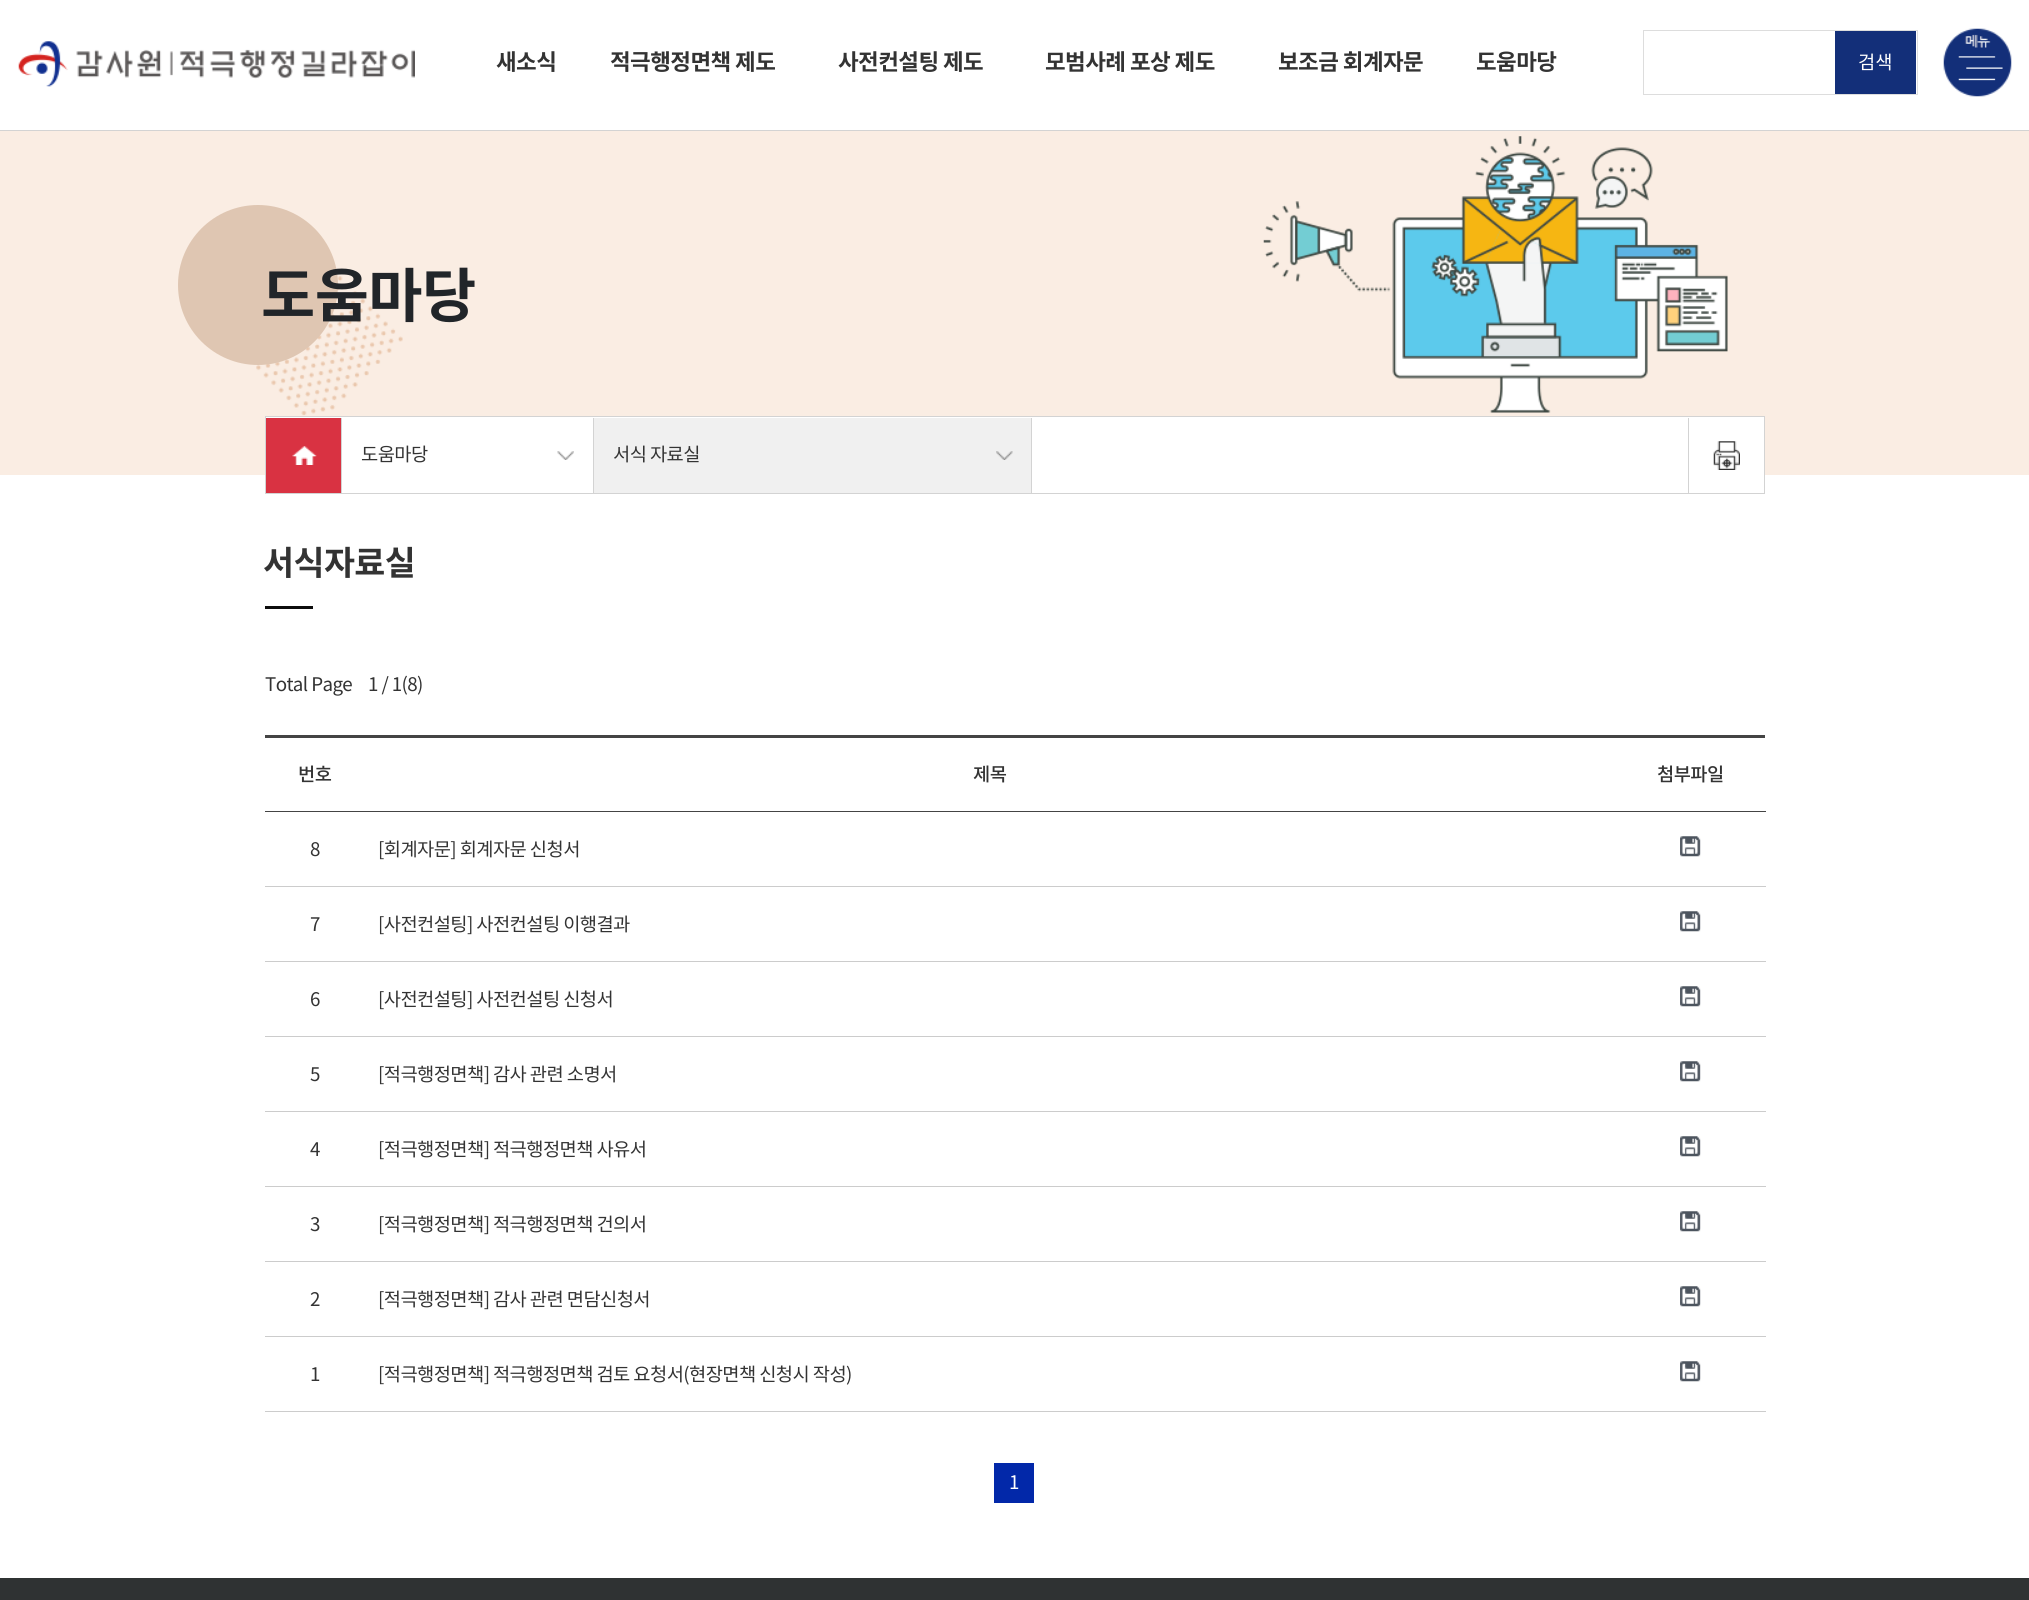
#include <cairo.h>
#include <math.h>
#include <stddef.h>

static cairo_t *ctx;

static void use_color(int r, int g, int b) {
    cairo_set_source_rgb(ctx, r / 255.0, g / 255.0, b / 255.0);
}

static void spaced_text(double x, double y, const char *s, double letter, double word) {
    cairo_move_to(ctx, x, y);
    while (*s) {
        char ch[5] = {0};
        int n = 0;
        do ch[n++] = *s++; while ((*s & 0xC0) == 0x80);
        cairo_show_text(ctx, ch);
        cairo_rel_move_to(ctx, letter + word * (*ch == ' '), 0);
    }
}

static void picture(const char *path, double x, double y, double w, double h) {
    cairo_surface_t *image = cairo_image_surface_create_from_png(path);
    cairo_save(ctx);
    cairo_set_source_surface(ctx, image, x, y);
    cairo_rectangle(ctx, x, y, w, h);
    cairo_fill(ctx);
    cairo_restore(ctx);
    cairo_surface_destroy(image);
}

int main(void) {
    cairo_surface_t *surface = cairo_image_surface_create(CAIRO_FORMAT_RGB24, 2029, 1600);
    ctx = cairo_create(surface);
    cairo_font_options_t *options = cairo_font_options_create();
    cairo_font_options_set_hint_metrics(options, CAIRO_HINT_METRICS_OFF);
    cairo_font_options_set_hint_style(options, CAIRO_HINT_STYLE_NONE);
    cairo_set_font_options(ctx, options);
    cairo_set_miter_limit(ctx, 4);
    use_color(255, 255, 255);
    cairo_paint(ctx);
    use_color(211, 211, 211);
    cairo_rectangle(ctx, 0, 130, 2029, 1);
    cairo_fill(ctx);
    picture("img1.png", 18, 41, 397, 46);
    cairo_select_font_face(ctx, "Noto Sans KR", CAIRO_FONT_SLANT_NORMAL, CAIRO_FONT_WEIGHT_BOLD);
    cairo_set_font_size(ctx, 22.5);
    use_color(51, 51, 51);
    spaced_text(496, 70, "새소식", -0.6, 0);
    spaced_text(610, 70, "적극행정면책 제도", -0.6, 0);
    spaced_text(838, 70, "사전컨설팅 제도", -0.6, 0);
    spaced_text(1045, 70, "모범사례 포상 제도", -0.6, 0);
    spaced_text(1278, 70, "보조금 회계자문", -0.6, 0);
    spaced_text(1476, 70, "도움마당", -0.6, 0);
    cairo_rectangle(ctx, 1643.5, 30.5, 274, 64);
    use_color(221, 221, 221);
    cairo_set_line_width(ctx, 1);
    cairo_stroke(ctx);
    use_color(19, 47, 121);
    cairo_rectangle(ctx, 1835, 31, 81, 63);
    cairo_fill(ctx);
    cairo_select_font_face(ctx, "Noto Sans KR", CAIRO_FONT_SLANT_NORMAL, CAIRO_FONT_WEIGHT_NORMAL);
    cairo_set_font_size(ctx, 18.75);
    use_color(255, 255, 255);
    cairo_move_to(ctx, 1858, 69);
    cairo_show_text(ctx, "검색");
    picture("img2.png", 1943, 28, 69, 69);
    use_color(250, 237, 227);
    cairo_rectangle(ctx, 0, 131, 2029, 344);
    cairo_fill(ctx);
    picture("img3.png", 256, 276, 147, 140);
    use_color(223, 198, 178);
    cairo_arc(ctx, 258, 285, 80, 0, 2 * M_PI);
    cairo_fill(ctx);
    cairo_select_font_face(ctx, "Noto Sans KR", CAIRO_FONT_SLANT_NORMAL, CAIRO_FONT_WEIGHT_BOLD);
    cairo_set_font_size(ctx, 59);
    use_color(33, 37, 41);
    spaced_text(261, 317, "도움마당", -0.6, 0);
    picture("img4.png", 1263, 136, 465, 277);
    use_color(255, 255, 255);
    cairo_rectangle(ctx, 266, 417, 1498, 58);
    cairo_fill(ctx);
    cairo_rectangle(ctx, 265.5, 416.5, 1499, 77);
    use_color(211, 211, 211);
    cairo_stroke(ctx);
    cairo_rectangle(ctx, 341, 418, 1, 75);
    cairo_fill(ctx);
    use_color(217, 50, 66);
    cairo_rectangle(ctx, 266, 418, 75, 75);
    cairo_fill(ctx);
    picture("img5.png", 292, 446, 25, 19);
    use_color(211, 211, 211);
    cairo_rectangle(ctx, 593, 418, 1, 75);
    cairo_fill(ctx);
    cairo_select_font_face(ctx, "Noto Sans KR", CAIRO_FONT_SLANT_NORMAL, CAIRO_FONT_WEIGHT_NORMAL);
    cairo_set_font_size(ctx, 18.75);
    use_color(51, 51, 51);
    spaced_text(361, 461, "도움마당", -0.6, 0);
    picture("img6.png", 557, 451, 17, 9);
    use_color(211, 211, 211);
    cairo_rectangle(ctx, 1031, 418, 1, 75);
    cairo_fill(ctx);
    use_color(240, 240, 240);
    cairo_rectangle(ctx, 594, 418, 437, 75);
    cairo_fill(ctx);
    use_color(51, 51, 51);
    spaced_text(613, 461, "서식 자료실", -0.6, 0);
    picture("img7.png", 996, 451, 17, 9);
    use_color(211, 211, 211);
    cairo_rectangle(ctx, 1688, 418, 1, 75);
    cairo_fill(ctx);
    picture("img8.png", 1713, 441, 27, 29);
    cairo_select_font_face(ctx, "Noto Sans KR", CAIRO_FONT_SLANT_NORMAL, CAIRO_FONT_WEIGHT_BOLD);
    cairo_set_font_size(ctx, 33.75);
    use_color(51, 51, 51);
    spaced_text(263, 575, "서식자료실", -0.6, 0);
    use_color(13, 13, 13);
    cairo_rectangle(ctx, 265, 606, 48, 3);
    cairo_fill(ctx);
    cairo_select_font_face(ctx, "Noto Sans KR", CAIRO_FONT_SLANT_NORMAL, CAIRO_FONT_WEIGHT_NORMAL);
    cairo_set_font_size(ctx, 18.75);
    use_color(51, 51, 51);
    spaced_text(265, 691, "Total Page", -0.6, 0);
    spaced_text(368, 691, "1 / 1(8)", -0.6, 0);
    use_color(68, 68, 68);
    cairo_rectangle(ctx, 265, 735, 1500, 3);
    cairo_fill(ctx);
    cairo_select_font_face(ctx, "Noto Sans KR Medium", CAIRO_FONT_SLANT_NORMAL, CAIRO_FONT_WEIGHT_NORMAL);
    use_color(51, 51, 51);
    spaced_text(298, 781, "번호", -0.6, 0);
    spaced_text(973, 781, "제목", -0.6, 0);
    use_color(68, 68, 68);
    cairo_rectangle(ctx, 265, 811, 1501, 1);
    cairo_fill(ctx);
    use_color(51, 51, 51);
    spaced_text(1657, 781, "첨부파일", -0.6, 0);
    use_color(204, 204, 204);
    cairo_rectangle(ctx, 265, 886, 1501, 1);
    cairo_fill(ctx);
    picture("img9.png", 1680, 836, 21, 21);
    cairo_select_font_face(ctx, "Noto Sans KR", CAIRO_FONT_SLANT_NORMAL, CAIRO_FONT_WEIGHT_NORMAL);
    use_color(51, 51, 51);
    spaced_text(310, 856, "8", -0.6, 0);
    spaced_text(378, 856, "[회계자문] 회계자문 신청서", -0.6, 0);
    use_color(204, 204, 204);
    cairo_rectangle(ctx, 265, 961, 1501, 1);
    cairo_fill(ctx);
    picture("img9.png", 1680, 911, 21, 21);
    use_color(51, 51, 51);
    spaced_text(310, 931, "7", -0.6, 0);
    spaced_text(378, 931, "[사전컨설팅] 사전컨설팅 이행결과", -0.6, 0);
    use_color(204, 204, 204);
    cairo_rectangle(ctx, 265, 1036, 1501, 1);
    cairo_fill(ctx);
    picture("img9.png", 1680, 986, 21, 21);
    use_color(51, 51, 51);
    spaced_text(310, 1006, "6", -0.6, 0);
    spaced_text(378, 1006, "[사전컨설팅] 사전컨설팅 신청서", -0.6, 0);
    use_color(204, 204, 204);
    cairo_rectangle(ctx, 265, 1111, 1501, 1);
    cairo_fill(ctx);
    picture("img9.png", 1680, 1061, 21, 21);
    use_color(51, 51, 51);
    spaced_text(310, 1081, "5", -0.6, 0);
    spaced_text(378, 1081, "[적극행정면책] 감사 관련 소명서", -0.6, 0);
    use_color(204, 204, 204);
    cairo_rectangle(ctx, 265, 1186, 1501, 1);
    cairo_fill(ctx);
    picture("img9.png", 1680, 1136, 21, 21);
    use_color(51, 51, 51);
    spaced_text(310, 1156, "4", -0.6, 0);
    spaced_text(378, 1156, "[적극행정면책] 적극행정면책 사유서", -0.6, 0);
    use_color(204, 204, 204);
    cairo_rectangle(ctx, 265, 1261, 1501, 1);
    cairo_fill(ctx);
    picture("img9.png", 1680, 1211, 21, 21);
    use_color(51, 51, 51);
    spaced_text(310, 1231, "3", -0.6, 0);
    spaced_text(378, 1231, "[적극행정면책] 적극행정면책 건의서", -0.6, 0);
    use_color(204, 204, 204);
    cairo_rectangle(ctx, 265, 1336, 1501, 1);
    cairo_fill(ctx);
    picture("img9.png", 1680, 1286, 21, 21);
    use_color(51, 51, 51);
    spaced_text(310, 1306, "2", -0.6, 0);
    spaced_text(378, 1306, "[적극행정면책] 감사 관련 면담신청서", -0.6, 0);
    use_color(204, 204, 204);
    cairo_rectangle(ctx, 265, 1411, 1501, 1);
    cairo_fill(ctx);
    picture("img9.png", 1680, 1361, 21, 21);
    use_color(51, 51, 51);
    spaced_text(310, 1381, "1", -0.6, 0);
    spaced_text(378, 1381, "[적극행정면책] 적극행정면책 검토 요청서(현장면책 신청시 작성)", -0.6, 0);
    use_color(2, 40, 169);
    cairo_rectangle(ctx, 994, 1463, 40, 40);
    cairo_fill(ctx);
    use_color(255, 255, 255);
    spaced_text(1009, 1489, "1", -0.6, 0);
    use_color(47, 50, 51);
    cairo_rectangle(ctx, 0, 1578, 2029, 22);
    cairo_fill(ctx);
    cairo_surface_write_to_png(surface, "result.png");
    cairo_font_options_destroy(options);
    cairo_destroy(ctx);
    cairo_surface_destroy(surface);
    return 0;
}
